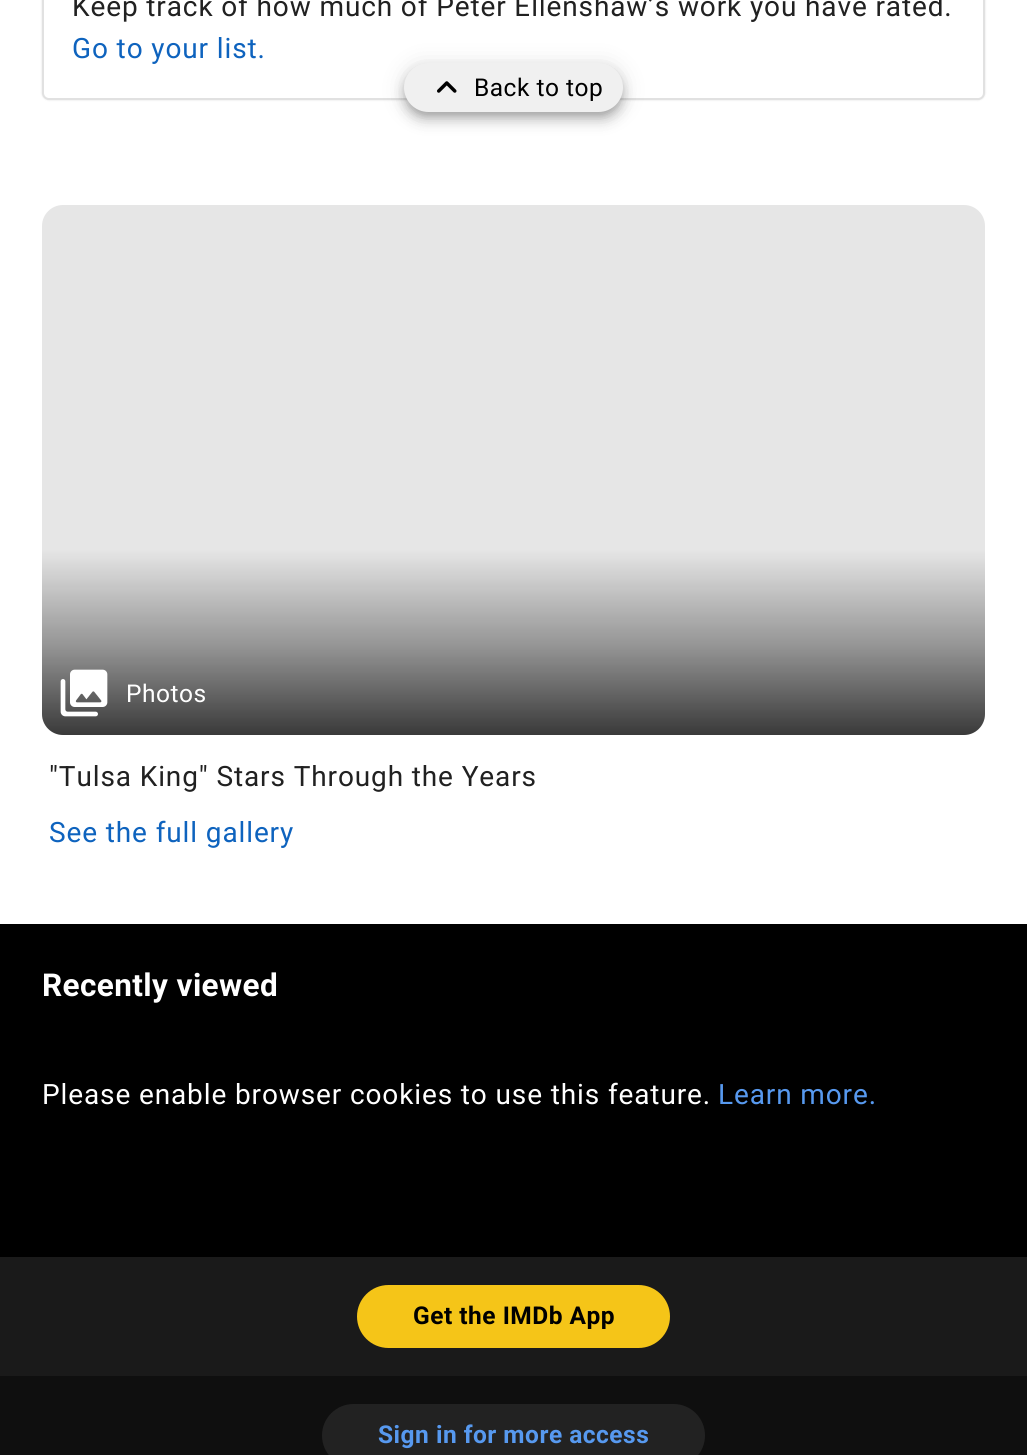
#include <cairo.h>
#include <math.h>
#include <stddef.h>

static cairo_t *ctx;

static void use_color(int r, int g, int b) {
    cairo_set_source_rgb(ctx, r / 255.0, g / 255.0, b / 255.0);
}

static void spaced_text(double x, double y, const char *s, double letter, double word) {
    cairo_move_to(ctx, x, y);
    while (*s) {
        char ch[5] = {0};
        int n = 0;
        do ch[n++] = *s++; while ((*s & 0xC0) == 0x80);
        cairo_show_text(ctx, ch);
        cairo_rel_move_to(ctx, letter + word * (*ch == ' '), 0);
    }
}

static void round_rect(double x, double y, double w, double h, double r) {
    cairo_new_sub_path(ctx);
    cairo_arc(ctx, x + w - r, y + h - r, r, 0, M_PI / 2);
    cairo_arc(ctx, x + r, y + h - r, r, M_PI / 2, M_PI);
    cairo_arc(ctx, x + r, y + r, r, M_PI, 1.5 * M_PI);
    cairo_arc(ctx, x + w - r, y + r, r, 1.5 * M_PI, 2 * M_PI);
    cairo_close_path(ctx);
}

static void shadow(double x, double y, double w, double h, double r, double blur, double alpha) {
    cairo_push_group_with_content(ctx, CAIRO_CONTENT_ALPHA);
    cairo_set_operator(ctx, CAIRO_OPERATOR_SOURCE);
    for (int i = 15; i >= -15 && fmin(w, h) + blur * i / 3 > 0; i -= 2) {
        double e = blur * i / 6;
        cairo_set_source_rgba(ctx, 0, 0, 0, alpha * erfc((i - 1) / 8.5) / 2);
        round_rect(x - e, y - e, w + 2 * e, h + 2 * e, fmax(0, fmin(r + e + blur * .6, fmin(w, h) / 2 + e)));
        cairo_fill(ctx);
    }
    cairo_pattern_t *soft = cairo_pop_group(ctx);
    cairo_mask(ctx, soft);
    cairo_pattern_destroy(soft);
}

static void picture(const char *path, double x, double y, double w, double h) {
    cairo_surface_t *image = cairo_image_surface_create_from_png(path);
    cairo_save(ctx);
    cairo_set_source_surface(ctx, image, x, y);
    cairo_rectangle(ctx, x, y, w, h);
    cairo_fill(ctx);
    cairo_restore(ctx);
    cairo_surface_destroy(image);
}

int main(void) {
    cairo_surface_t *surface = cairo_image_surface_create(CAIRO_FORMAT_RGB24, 1027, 1455);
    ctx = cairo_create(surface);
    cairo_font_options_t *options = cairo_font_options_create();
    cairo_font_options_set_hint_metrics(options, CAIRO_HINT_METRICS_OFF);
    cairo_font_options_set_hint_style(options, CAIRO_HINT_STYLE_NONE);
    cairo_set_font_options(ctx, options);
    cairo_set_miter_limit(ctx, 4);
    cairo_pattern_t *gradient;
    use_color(0, 0, 0);
    cairo_paint(ctx);
    use_color(255, 255, 255);
    cairo_rectangle(ctx, 0, 0, 1027, 924);
    cairo_fill(ctx);
    use_color(0, 0, 0);
    shadow(42, -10, 943, 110, 7, 1, 0.12);
    use_color(255, 255, 255);
    round_rect(42, -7, 943, 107, 7);
    cairo_fill(ctx);
    round_rect(43, -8, 941, 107, 6);
    cairo_set_source_rgba(ctx, 0, 0, 0, 0.12);
    cairo_stroke(ctx);
    cairo_select_font_face(ctx, "Roboto", CAIRO_FONT_SLANT_NORMAL, CAIRO_FONT_WEIGHT_NORMAL);
    cairo_set_font_size(ctx, 28);
    use_color(33, 33, 33);
    spaced_text(72, 16, "Keep track of how much of Peter Ellenshaw’s work you have rated.", 0.88, 0);
    use_color(14, 99, 190);
    spaced_text(72, 58, "Go to your list.", 0.88, 0);
    use_color(230, 230, 230);
    round_rect(42, 205, 943, 530, 21);
    cairo_fill(ctx);
    gradient = cairo_pattern_create_linear(514, 205, 514, 735);
    cairo_pattern_add_color_stop_rgba(gradient, 0, 0, 0, 0, 0);
    cairo_pattern_add_color_stop_rgba(gradient, 0.65, 0, 0, 0, 0);
    cairo_pattern_add_color_stop_rgba(gradient, 0.83, 0, 0, 0, 0.35);
    cairo_pattern_add_color_stop_rgba(gradient, 1, 0, 0, 0, 0.75);
    cairo_set_source(ctx, gradient);
    cairo_pattern_destroy(gradient);
    round_rect(42, 205, 943, 530, 21);
    cairo_fill(ctx);
    picture("img1.png", 60, 669, 48, 48);
    cairo_set_font_size(ctx, 24.5);
    use_color(255, 255, 255);
    spaced_text(126, 702, "Photos", 0.5, 0);
    cairo_set_font_size(ctx, 28);
    use_color(33, 33, 33);
    spaced_text(49, 786, "\"Tulsa King\" Stars Through the Years", 0.88, 0);
    use_color(14, 99, 190);
    spaced_text(49, 842, "See the full gallery", 0.88, 0);
    use_color(0, 0, 0);
    shadow(404, 65, 219, 49, 24.5, 12, 0.12);
    shadow(404, 72, 219, 49, 24.5, 7, 0.14);
    shadow(406, 70, 215, 46, 23, 4.5, 0.2);
    use_color(240, 240, 240);
    round_rect(404, 63, 219, 49, 24.5);
    cairo_fill(ctx);
    picture("img2.png", 437, 81, 20, 12);
    cairo_set_font_size(ctx, 24.5);
    use_color(0, 0, 0);
    spaced_text(474, 96, "Back to top", 0.5, 0);
    cairo_select_font_face(ctx, "Roboto", CAIRO_FONT_SLANT_NORMAL, CAIRO_FONT_WEIGHT_BOLD);
    cairo_set_font_size(ctx, 31.5);
    use_color(255, 255, 255);
    spaced_text(42, 996, "Recently viewed", 0.4, 0);
    cairo_select_font_face(ctx, "Roboto", CAIRO_FONT_SLANT_NORMAL, CAIRO_FONT_WEIGHT_NORMAL);
    cairo_set_font_size(ctx, 28);
    spaced_text(42, 1104, "Please enable browser cookies to use this feature.", 0.88, 0);
    use_color(87, 153, 239);
    spaced_text(718, 1104, "Learn more.", 0.88, 0);
    use_color(26, 26, 26);
    cairo_rectangle(ctx, 0, 1257, 1027, 119);
    cairo_fill(ctx);
    use_color(245, 197, 24);
    round_rect(357, 1285, 313, 63, 31.5);
    cairo_fill(ctx);
    cairo_select_font_face(ctx, "Roboto", CAIRO_FONT_SLANT_NORMAL, CAIRO_FONT_WEIGHT_BOLD);
    cairo_set_font_size(ctx, 24.5);
    use_color(0, 0, 0);
    spaced_text(413, 1324, "Get the IMDb App", 0.5, 0);
    use_color(15, 15, 15);
    cairo_rectangle(ctx, 0, 1376, 1027, 79);
    cairo_fill(ctx);
    use_color(34, 34, 34);
    round_rect(322, 1404, 383, 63, 31.5);
    cairo_fill(ctx);
    use_color(87, 153, 239);
    spaced_text(378, 1443, "Sign in for more access", 0.5, 0);
    cairo_surface_write_to_png(surface, "result.png");
    cairo_font_options_destroy(options);
    cairo_destroy(ctx);
    cairo_surface_destroy(surface);
    return 0;
}
